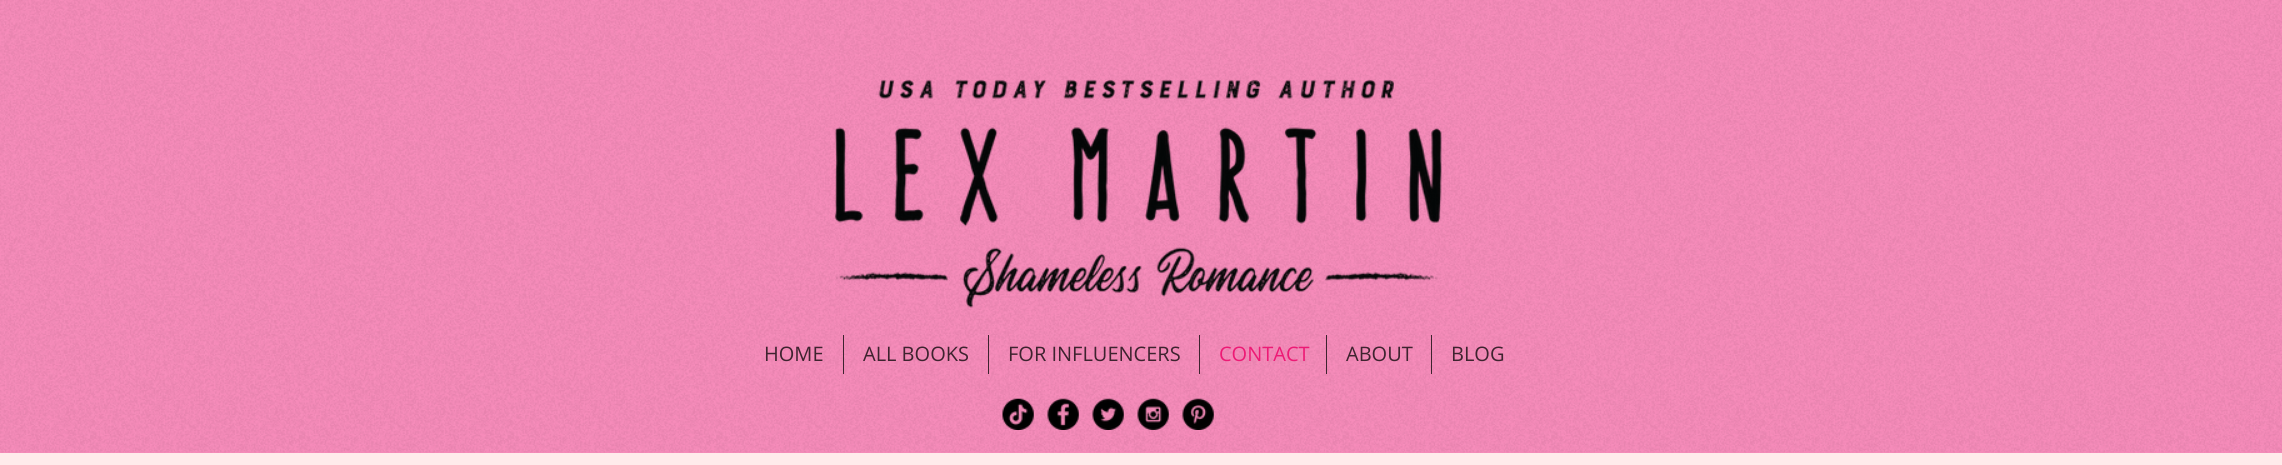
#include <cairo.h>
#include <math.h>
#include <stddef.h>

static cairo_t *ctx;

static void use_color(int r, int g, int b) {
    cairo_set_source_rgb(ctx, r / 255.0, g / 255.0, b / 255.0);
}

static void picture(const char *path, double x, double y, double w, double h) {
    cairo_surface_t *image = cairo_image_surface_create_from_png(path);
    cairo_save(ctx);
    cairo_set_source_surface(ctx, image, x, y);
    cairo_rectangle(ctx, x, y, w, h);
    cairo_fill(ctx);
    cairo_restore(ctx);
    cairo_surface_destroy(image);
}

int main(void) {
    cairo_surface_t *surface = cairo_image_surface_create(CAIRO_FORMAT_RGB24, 2282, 465);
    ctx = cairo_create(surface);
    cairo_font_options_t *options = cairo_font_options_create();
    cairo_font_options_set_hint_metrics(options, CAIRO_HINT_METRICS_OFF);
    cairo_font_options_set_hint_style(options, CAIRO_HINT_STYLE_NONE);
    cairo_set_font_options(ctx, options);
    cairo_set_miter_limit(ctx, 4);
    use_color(247, 139, 186);
    cairo_paint(ctx);
    picture("img1.png", 0, 0, 2282, 453);
    picture("img2.png", 834, 79, 608, 229);
    cairo_select_font_face(ctx, "Open Sans", CAIRO_FONT_SLANT_NORMAL, CAIRO_FONT_WEIGHT_NORMAL);
    cairo_set_font_size(ctx, 20);
    use_color(62, 35, 47);
    cairo_move_to(ctx, 764, 361);
    cairo_show_text(ctx, "HOME");
    cairo_rectangle(ctx, 843, 335, 1, 39);
    cairo_fill(ctx);
    cairo_move_to(ctx, 863, 361);
    cairo_show_text(ctx, "ALL BOOKS");
    cairo_rectangle(ctx, 988, 335, 1, 39);
    cairo_fill(ctx);
    cairo_move_to(ctx, 1008, 361);
    cairo_show_text(ctx, "FOR INFLUENCERS");
    cairo_rectangle(ctx, 1199, 335, 1, 39);
    cairo_fill(ctx);
    use_color(237, 26, 117);
    cairo_move_to(ctx, 1219, 361);
    cairo_show_text(ctx, "CONTACT");
    use_color(62, 35, 47);
    cairo_rectangle(ctx, 1326, 335, 1, 39);
    cairo_fill(ctx);
    cairo_move_to(ctx, 1346, 361);
    cairo_show_text(ctx, "ABOUT");
    cairo_rectangle(ctx, 1431, 335, 1, 39);
    cairo_fill(ctx);
    cairo_move_to(ctx, 1451, 361);
    cairo_show_text(ctx, "BLOG");
    picture("img3.png", 1002, 398, 32, 32);
    picture("img4.png", 1047, 398, 32, 32);
    picture("img5.png", 1092, 398, 32, 32);
    picture("img6.png", 1137, 398, 32, 32);
    picture("img7.png", 1182, 398, 32, 32);
    use_color(255, 235, 235);
    cairo_rectangle(ctx, 0, 453, 2282, 12);
    cairo_fill(ctx);
    cairo_surface_write_to_png(surface, "result.png");
    cairo_font_options_destroy(options);
    cairo_destroy(ctx);
    cairo_surface_destroy(surface);
    return 0;
}
